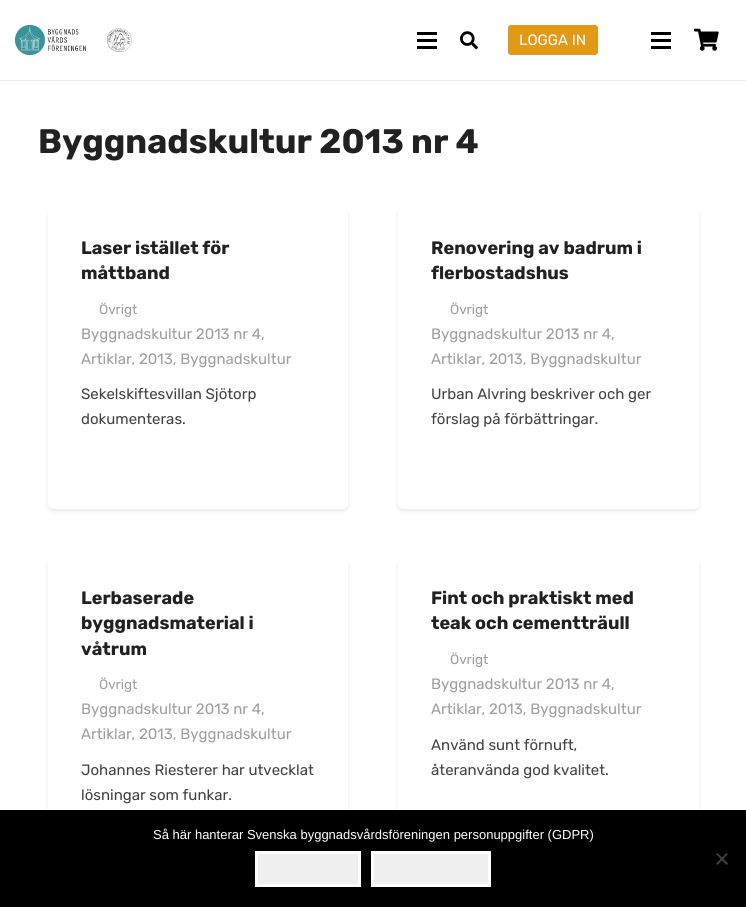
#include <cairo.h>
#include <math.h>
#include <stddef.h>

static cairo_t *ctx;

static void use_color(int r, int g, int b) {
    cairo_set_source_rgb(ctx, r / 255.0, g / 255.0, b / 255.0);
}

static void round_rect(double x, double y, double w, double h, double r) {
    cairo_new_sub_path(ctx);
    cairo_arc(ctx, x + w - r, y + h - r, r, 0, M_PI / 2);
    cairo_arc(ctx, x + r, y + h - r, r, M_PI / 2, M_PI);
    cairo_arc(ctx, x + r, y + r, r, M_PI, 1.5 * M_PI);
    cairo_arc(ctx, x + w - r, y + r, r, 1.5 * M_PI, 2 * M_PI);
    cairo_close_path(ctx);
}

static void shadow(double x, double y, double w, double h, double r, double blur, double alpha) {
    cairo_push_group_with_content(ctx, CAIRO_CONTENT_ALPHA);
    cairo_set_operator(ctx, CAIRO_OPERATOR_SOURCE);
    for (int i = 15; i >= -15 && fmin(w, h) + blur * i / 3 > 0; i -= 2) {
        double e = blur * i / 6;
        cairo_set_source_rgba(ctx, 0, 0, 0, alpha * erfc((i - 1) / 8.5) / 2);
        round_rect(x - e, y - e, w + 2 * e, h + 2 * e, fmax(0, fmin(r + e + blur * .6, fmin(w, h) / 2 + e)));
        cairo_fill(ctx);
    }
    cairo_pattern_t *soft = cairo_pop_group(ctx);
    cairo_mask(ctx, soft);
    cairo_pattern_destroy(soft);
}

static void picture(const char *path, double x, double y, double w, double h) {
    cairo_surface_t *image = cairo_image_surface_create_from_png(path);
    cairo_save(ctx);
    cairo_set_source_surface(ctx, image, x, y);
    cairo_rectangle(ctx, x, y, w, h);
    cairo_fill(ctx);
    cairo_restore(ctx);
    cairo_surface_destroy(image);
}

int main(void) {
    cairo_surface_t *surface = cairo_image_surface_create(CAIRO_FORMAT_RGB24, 746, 907);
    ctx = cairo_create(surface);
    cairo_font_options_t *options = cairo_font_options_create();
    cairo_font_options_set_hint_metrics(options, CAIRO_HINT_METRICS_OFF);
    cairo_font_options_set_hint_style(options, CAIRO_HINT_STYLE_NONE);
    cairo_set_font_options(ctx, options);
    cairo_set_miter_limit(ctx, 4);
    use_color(255, 255, 255);
    cairo_paint(ctx);
    use_color(235, 235, 235);
    cairo_rectangle(ctx, 0, 80, 746, 1);
    cairo_fill(ctx);
    picture("img1.png", 15, 25, 71, 30);
    picture("img2.png", 107, 28, 25, 24);
    use_color(0, 0, 0);
    cairo_rectangle(ctx, 417, 39, 20, 3);
    cairo_fill(ctx);
    cairo_rectangle(ctx, 417, 32, 20, 3);
    cairo_fill(ctx);
    cairo_rectangle(ctx, 417, 46, 20, 3);
    cairo_fill(ctx);
    picture("img3.png", 460, 31, 18, 19);
    use_color(225, 153, 22);
    round_rect(508.5, 25.5, 89, 29, 2.5);
    cairo_fill_preserve(ctx);
    cairo_set_line_width(ctx, 1);
    cairo_stroke(ctx);
    cairo_select_font_face(ctx, "Rubik", CAIRO_FONT_SLANT_NORMAL, CAIRO_FONT_WEIGHT_NORMAL);
    cairo_set_font_size(ctx, 15);
    use_color(255, 255, 255);
    cairo_move_to(ctx, 519, 45);
    cairo_show_text(ctx, "LOGGA IN");
    use_color(0, 0, 0);
    cairo_rectangle(ctx, 651, 39, 20, 3);
    cairo_fill(ctx);
    cairo_rectangle(ctx, 651, 32, 20, 3);
    cairo_fill(ctx);
    cairo_rectangle(ctx, 651, 46, 20, 3);
    cairo_fill(ctx);
    picture("img4.png", 694, 28, 25, 23);
    cairo_select_font_face(ctx, "Rubik", CAIRO_FONT_SLANT_NORMAL, CAIRO_FONT_WEIGHT_BOLD);
    cairo_set_font_size(ctx, 34);
    use_color(33, 33, 33);
    cairo_move_to(ctx, 38, 153);
    cairo_show_text(ctx, "Byggnadskultur 2013 nr 4");
    use_color(0, 0, 0);
    shadow(48, 211, 300, 300, 5, 2, 0.1);
    use_color(255, 255, 255);
    round_rect(48, 209, 300, 300, 5);
    cairo_fill(ctx);
    cairo_set_font_size(ctx, 18);
    use_color(33, 33, 33);
    cairo_move_to(ctx, 81, 254);
    cairo_show_text(ctx, "Laser istället för");
    cairo_move_to(ctx, 81, 279);
    cairo_show_text(ctx, "måttband");
    cairo_select_font_face(ctx, "Rubik", CAIRO_FONT_SLANT_NORMAL, CAIRO_FONT_WEIGHT_NORMAL);
    cairo_set_font_size(ctx, 13.5);
    use_color(158, 158, 158);
    cairo_move_to(ctx, 99, 314);
    cairo_show_text(ctx, "Övrigt");
    cairo_set_font_size(ctx, 15);
    cairo_move_to(ctx, 81, 339);
    cairo_show_text(ctx, "Byggnadskultur 2013 nr 4,");
    cairo_move_to(ctx, 81, 364);
    cairo_show_text(ctx, "Artiklar, 2013, Byggnadskultur");
    use_color(66, 66, 66);
    cairo_move_to(ctx, 81, 399);
    cairo_show_text(ctx, "Sekelskiftesvillan Sjötorp");
    cairo_move_to(ctx, 81, 424);
    cairo_show_text(ctx, "dokumenteras.");
    use_color(0, 0, 0);
    shadow(398, 211, 301, 300, 5, 2, 0.1);
    use_color(255, 255, 255);
    round_rect(398, 209, 301, 300, 5);
    cairo_fill(ctx);
    cairo_select_font_face(ctx, "Rubik", CAIRO_FONT_SLANT_NORMAL, CAIRO_FONT_WEIGHT_BOLD);
    cairo_set_font_size(ctx, 18);
    use_color(33, 33, 33);
    cairo_move_to(ctx, 431, 254);
    cairo_show_text(ctx, "Renovering av badrum i");
    cairo_move_to(ctx, 431, 279);
    cairo_show_text(ctx, "flerbostadshus");
    cairo_select_font_face(ctx, "Rubik", CAIRO_FONT_SLANT_NORMAL, CAIRO_FONT_WEIGHT_NORMAL);
    cairo_set_font_size(ctx, 13.5);
    use_color(158, 158, 158);
    cairo_move_to(ctx, 450, 314);
    cairo_show_text(ctx, "Övrigt");
    cairo_set_font_size(ctx, 15);
    cairo_move_to(ctx, 431, 339);
    cairo_show_text(ctx, "Byggnadskultur 2013 nr 4,");
    cairo_move_to(ctx, 431, 364);
    cairo_show_text(ctx, "Artiklar, 2013, Byggnadskultur");
    use_color(66, 66, 66);
    cairo_move_to(ctx, 431, 399);
    cairo_show_text(ctx, "Urban Alvring beskriver och ger");
    cairo_move_to(ctx, 431, 424);
    cairo_show_text(ctx, "förslag på förbättringar.");
    use_color(0, 0, 0);
    shadow(48, 561, 300, 301, 5, 2, 0.1);
    use_color(255, 255, 255);
    round_rect(48, 559, 300, 301, 5);
    cairo_fill(ctx);
    cairo_select_font_face(ctx, "Rubik", CAIRO_FONT_SLANT_NORMAL, CAIRO_FONT_WEIGHT_BOLD);
    cairo_set_font_size(ctx, 18);
    use_color(33, 33, 33);
    cairo_move_to(ctx, 81, 604);
    cairo_show_text(ctx, "Lerbaserade");
    cairo_move_to(ctx, 81, 629);
    cairo_show_text(ctx, "byggnadsmaterial i");
    cairo_move_to(ctx, 81, 655);
    cairo_show_text(ctx, "våtrum");
    cairo_select_font_face(ctx, "Rubik", CAIRO_FONT_SLANT_NORMAL, CAIRO_FONT_WEIGHT_NORMAL);
    cairo_set_font_size(ctx, 13.5);
    use_color(158, 158, 158);
    cairo_move_to(ctx, 99, 689);
    cairo_show_text(ctx, "Övrigt");
    cairo_set_font_size(ctx, 15);
    cairo_move_to(ctx, 81, 714);
    cairo_show_text(ctx, "Byggnadskultur 2013 nr 4,");
    cairo_move_to(ctx, 81, 739);
    cairo_show_text(ctx, "Artiklar, 2013, Byggnadskultur");
    use_color(66, 66, 66);
    cairo_move_to(ctx, 81, 775);
    cairo_show_text(ctx, "Johannes Riesterer har utvecklat");
    cairo_move_to(ctx, 81, 800);
    cairo_show_text(ctx, "lösningar som funkar.");
    use_color(0, 0, 0);
    shadow(398, 561, 301, 301, 5, 2, 0.1);
    use_color(255, 255, 255);
    round_rect(398, 559, 301, 301, 5);
    cairo_fill(ctx);
    cairo_select_font_face(ctx, "Rubik", CAIRO_FONT_SLANT_NORMAL, CAIRO_FONT_WEIGHT_BOLD);
    cairo_set_font_size(ctx, 18);
    use_color(33, 33, 33);
    cairo_move_to(ctx, 431, 604);
    cairo_show_text(ctx, "Fint och praktiskt med");
    cairo_move_to(ctx, 431, 629);
    cairo_show_text(ctx, "teak och cementträull");
    cairo_select_font_face(ctx, "Rubik", CAIRO_FONT_SLANT_NORMAL, CAIRO_FONT_WEIGHT_NORMAL);
    cairo_set_font_size(ctx, 13.5);
    use_color(158, 158, 158);
    cairo_move_to(ctx, 450, 664);
    cairo_show_text(ctx, "Övrigt");
    cairo_set_font_size(ctx, 15);
    cairo_move_to(ctx, 431, 689);
    cairo_show_text(ctx, "Byggnadskultur 2013 nr 4,");
    cairo_move_to(ctx, 431, 714);
    cairo_show_text(ctx, "Artiklar, 2013, Byggnadskultur");
    use_color(66, 66, 66);
    cairo_move_to(ctx, 431, 750);
    cairo_show_text(ctx, "Använd sunt förnuft,");
    cairo_move_to(ctx, 431, 775);
    cairo_show_text(ctx, "återanvända god kvalitet.");
    use_color(0, 0, 0);
    cairo_rectangle(ctx, 0, 810, 746, 97);
    cairo_fill(ctx);
    cairo_select_font_face(ctx, "Liberation Sans", CAIRO_FONT_SLANT_NORMAL, CAIRO_FONT_WEIGHT_NORMAL);
    cairo_set_font_size(ctx, 13);
    use_color(255, 255, 255);
    cairo_move_to(ctx, 153, 839);
    cairo_show_text(ctx, "Så här hanterar Svenska byggnadsvårdsföreningen personuppgifter (GDPR)");
    use_color(239, 239, 239);
    cairo_rectangle(ctx, 256.5, 852.5, 103, 33);
    cairo_fill_preserve(ctx);
    use_color(255, 255, 255);
    cairo_set_line_width(ctx, 3);
    cairo_stroke(ctx);
    use_color(239, 239, 239);
    cairo_rectangle(ctx, 372.5, 852.5, 117, 33);
    cairo_fill_preserve(ctx);
    use_color(255, 255, 255);
    cairo_stroke(ctx);
    use_color(64, 64, 64);
    cairo_new_path(ctx);
    cairo_move_to(ctx, 726.5, 853);
    cairo_line_to(ctx, 728, 854);
    cairo_line_to(ctx, 717.5, 865);
    cairo_line_to(ctx, 716, 863.5);
    cairo_close_path(ctx);
    cairo_fill(ctx);
    cairo_new_path(ctx);
    cairo_move_to(ctx, 716, 854);
    cairo_line_to(ctx, 717.5, 853);
    cairo_line_to(ctx, 728, 863.5);
    cairo_line_to(ctx, 726.5, 865);
    cairo_close_path(ctx);
    cairo_fill(ctx);
    cairo_surface_write_to_png(surface, "result.png");
    cairo_font_options_destroy(options);
    cairo_destroy(ctx);
    cairo_surface_destroy(surface);
    return 0;
}
